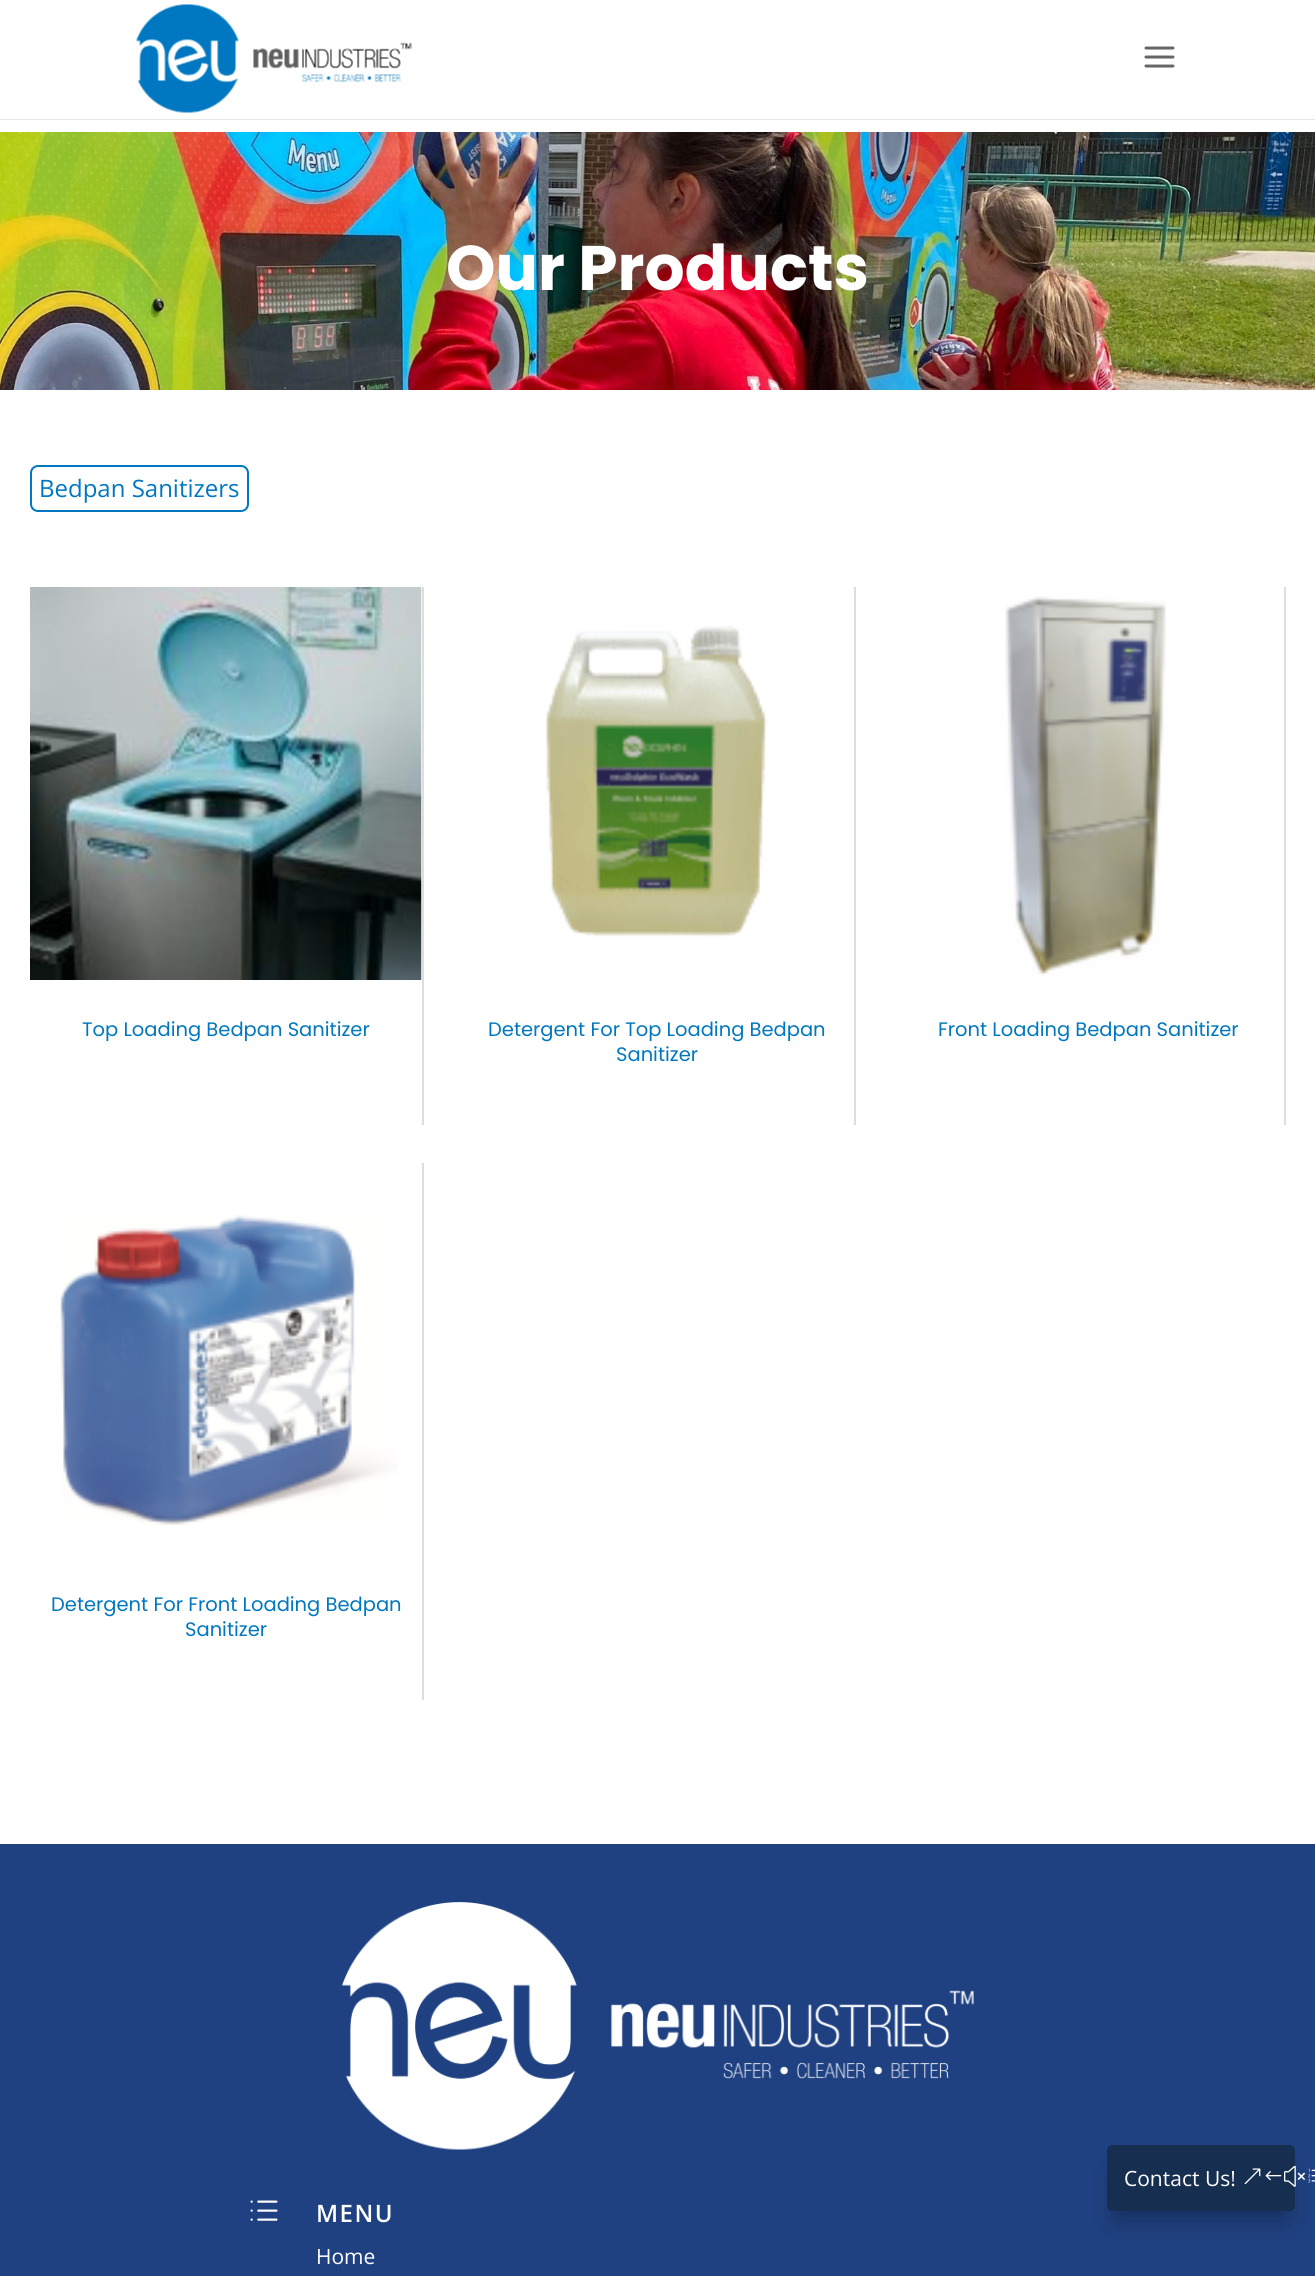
#include <cairo.h>
#include <math.h>
#include <stddef.h>

static cairo_t *ctx;

static void use_color(int r, int g, int b) {
    cairo_set_source_rgb(ctx, r / 255.0, g / 255.0, b / 255.0);
}

static void spaced_text(double x, double y, const char *s, double letter, double word) {
    cairo_move_to(ctx, x, y);
    while (*s) {
        char ch[5] = {0};
        int n = 0;
        do ch[n++] = *s++; while ((*s & 0xC0) == 0x80);
        cairo_show_text(ctx, ch);
        cairo_rel_move_to(ctx, letter + word * (*ch == ' '), 0);
    }
}

static void round_rect(double x, double y, double w, double h, double r) {
    cairo_new_sub_path(ctx);
    cairo_arc(ctx, x + w - r, y + h - r, r, 0, M_PI / 2);
    cairo_arc(ctx, x + r, y + h - r, r, M_PI / 2, M_PI);
    cairo_arc(ctx, x + r, y + r, r, M_PI, 1.5 * M_PI);
    cairo_arc(ctx, x + w - r, y + r, r, 1.5 * M_PI, 2 * M_PI);
    cairo_close_path(ctx);
}

static void shadow(double x, double y, double w, double h, double r, double blur, double alpha) {
    cairo_push_group_with_content(ctx, CAIRO_CONTENT_ALPHA);
    cairo_set_operator(ctx, CAIRO_OPERATOR_SOURCE);
    for (int i = 15; i >= -15 && fmin(w, h) + blur * i / 3 > 0; i -= 2) {
        double e = blur * i / 6;
        cairo_set_source_rgba(ctx, 0, 0, 0, alpha * erfc((i - 1) / 8.5) / 2);
        round_rect(x - e, y - e, w + 2 * e, h + 2 * e, fmax(0, fmin(r + e + blur * .6, fmin(w, h) / 2 + e)));
        cairo_fill(ctx);
    }
    cairo_pattern_t *soft = cairo_pop_group(ctx);
    cairo_mask(ctx, soft);
    cairo_pattern_destroy(soft);
}

static void picture(const char *path, double x, double y, double w, double h) {
    cairo_surface_t *image = cairo_image_surface_create_from_png(path);
    cairo_save(ctx);
    cairo_set_source_surface(ctx, image, x, y);
    cairo_rectangle(ctx, x, y, w, h);
    cairo_fill(ctx);
    cairo_restore(ctx);
    cairo_surface_destroy(image);
}

int main(void) {
    cairo_surface_t *surface = cairo_image_surface_create(CAIRO_FORMAT_RGB24, 1315, 2276);
    ctx = cairo_create(surface);
    cairo_font_options_t *options = cairo_font_options_create();
    cairo_font_options_set_hint_metrics(options, CAIRO_HINT_METRICS_OFF);
    cairo_font_options_set_hint_style(options, CAIRO_HINT_STYLE_NONE);
    cairo_set_font_options(ctx, options);
    cairo_set_miter_limit(ctx, 4);
    use_color(255, 255, 255);
    cairo_paint(ctx);
    use_color(230, 230, 230);
    cairo_new_path(ctx);
    cairo_move_to(ctx, 0, 118);
    cairo_line_to(ctx, 0, 120);
    cairo_line_to(ctx, 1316, 120);
    cairo_line_to(ctx, 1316, 0);
    cairo_line_to(ctx, 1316, 118);
    cairo_close_path(ctx);
    cairo_fill(ctx);
    use_color(255, 255, 255);
    cairo_rectangle(ctx, 0, 118, 1315, 1);
    cairo_fill(ctx);
    picture("img1.png", 136, 4, 276, 109);
    picture("img2.png", 1144, 46, 31, 22);
    picture("img3.png", 0, 132, 1315, 258);
    cairo_select_font_face(ctx, "Poppins", CAIRO_FONT_SLANT_NORMAL, CAIRO_FONT_WEIGHT_BOLD);
    cairo_set_font_size(ctx, 63);
    cairo_move_to(ctx, 446, 290);
    cairo_show_text(ctx, "Our Products");
    round_rect(31, 466, 217, 45, 7);
    use_color(0, 119, 192);
    cairo_stroke(ctx);
    cairo_select_font_face(ctx, "Open Sans", CAIRO_FONT_SLANT_NORMAL, CAIRO_FONT_WEIGHT_NORMAL);
    cairo_set_font_size(ctx, 24);
    cairo_move_to(ctx, 39, 497);
    cairo_show_text(ctx, "Bedpan Sanitizers");
    use_color(222, 222, 222);
    cairo_rectangle(ctx, 422, 587, 2, 538);
    cairo_fill(ctx);
    picture("img4.png", 30, 587, 392, 393);
    cairo_select_font_face(ctx, "Poppins", CAIRO_FONT_SLANT_NORMAL, CAIRO_FONT_WEIGHT_NORMAL);
    cairo_set_font_size(ctx, 19.5);
    use_color(0, 119, 192);
    cairo_move_to(ctx, 82, 1036);
    cairo_show_text(ctx, "Top Loading Bedpan Sanitizer");
    use_color(222, 222, 222);
    cairo_rectangle(ctx, 854, 587, 2, 538);
    cairo_fill(ctx);
    picture("img5.png", 546, 625, 222, 312);
    use_color(0, 119, 192);
    cairo_move_to(ctx, 488, 1036);
    cairo_show_text(ctx, "Detergent For Top Loading Bedpan");
    cairo_move_to(ctx, 616, 1061);
    cairo_show_text(ctx, "Sanitizer");
    use_color(222, 222, 222);
    cairo_rectangle(ctx, 1284, 587, 2, 538);
    cairo_fill(ctx);
    picture("img6.png", 1005, 596, 161, 380);
    use_color(0, 119, 192);
    cairo_move_to(ctx, 938, 1036);
    cairo_show_text(ctx, "Front Loading Bedpan Sanitizer");
    use_color(222, 222, 222);
    cairo_rectangle(ctx, 422, 1163, 2, 537);
    cairo_fill(ctx);
    picture("img7.png", 60, 1215, 337, 310);
    use_color(0, 119, 192);
    cairo_move_to(ctx, 51, 1611);
    cairo_show_text(ctx, "Detergent For Front Loading Bedpan");
    cairo_move_to(ctx, 185, 1636);
    cairo_show_text(ctx, "Sanitizer");
    use_color(31, 65, 130);
    cairo_rectangle(ctx, 0, 1844, 1315, 432);
    cairo_fill(ctx);
    picture("img8.png", 342, 1902, 632, 248);
    use_color(0, 0, 0);
    shadow(1116, 2172, 170, 48, 0, 13.5, 0.3);
    use_color(22, 46, 79);
    round_rect(1108.5, 2146.5, 185, 63, 3.5);
    cairo_fill_preserve(ctx);
    cairo_set_line_width(ctx, 3);
    cairo_stroke(ctx);
    cairo_select_font_face(ctx, "Open Sans", CAIRO_FONT_SLANT_NORMAL, CAIRO_FONT_WEIGHT_NORMAL);
    cairo_set_font_size(ctx, 21);
    use_color(255, 255, 255);
    cairo_move_to(ctx, 1124, 2186);
    cairo_show_text(ctx, "Contact Us!");
    picture("img9.png", 1244, 2165, 71, 22);
    picture("img10.png", 250, 2200, 28, 21);
    cairo_select_font_face(ctx, "Open Sans SemiBold", CAIRO_FONT_SLANT_NORMAL, CAIRO_FONT_WEIGHT_NORMAL);
    cairo_set_font_size(ctx, 24);
    spaced_text(316, 2222, "MENU", 1.5, 0);
    cairo_select_font_face(ctx, "Open Sans", CAIRO_FONT_SLANT_NORMAL, CAIRO_FONT_WEIGHT_NORMAL);
    cairo_set_font_size(ctx, 21);
    cairo_move_to(ctx, 316, 2264);
    cairo_show_text(ctx, "Home");
    cairo_surface_write_to_png(surface, "result.png");
    cairo_font_options_destroy(options);
    cairo_destroy(ctx);
    cairo_surface_destroy(surface);
    return 0;
}
